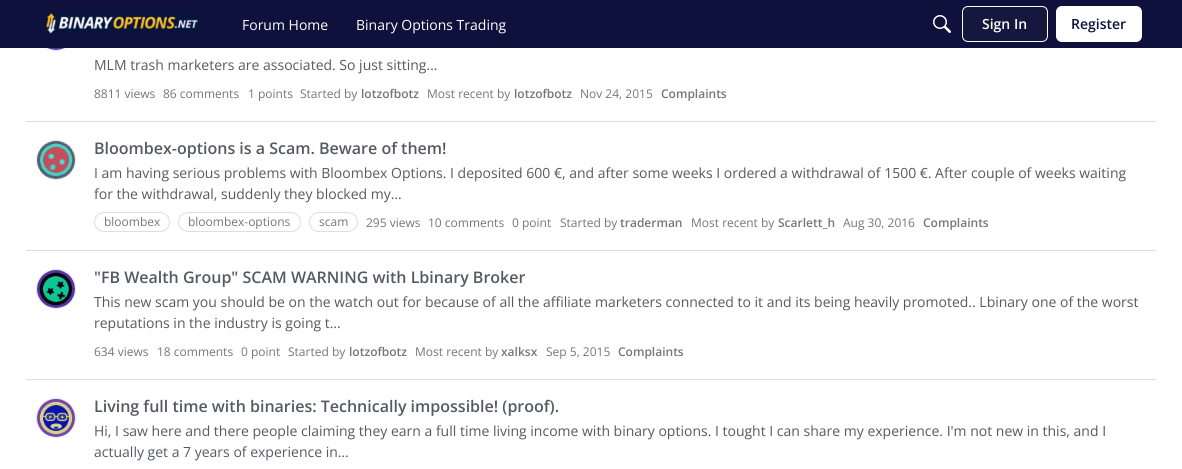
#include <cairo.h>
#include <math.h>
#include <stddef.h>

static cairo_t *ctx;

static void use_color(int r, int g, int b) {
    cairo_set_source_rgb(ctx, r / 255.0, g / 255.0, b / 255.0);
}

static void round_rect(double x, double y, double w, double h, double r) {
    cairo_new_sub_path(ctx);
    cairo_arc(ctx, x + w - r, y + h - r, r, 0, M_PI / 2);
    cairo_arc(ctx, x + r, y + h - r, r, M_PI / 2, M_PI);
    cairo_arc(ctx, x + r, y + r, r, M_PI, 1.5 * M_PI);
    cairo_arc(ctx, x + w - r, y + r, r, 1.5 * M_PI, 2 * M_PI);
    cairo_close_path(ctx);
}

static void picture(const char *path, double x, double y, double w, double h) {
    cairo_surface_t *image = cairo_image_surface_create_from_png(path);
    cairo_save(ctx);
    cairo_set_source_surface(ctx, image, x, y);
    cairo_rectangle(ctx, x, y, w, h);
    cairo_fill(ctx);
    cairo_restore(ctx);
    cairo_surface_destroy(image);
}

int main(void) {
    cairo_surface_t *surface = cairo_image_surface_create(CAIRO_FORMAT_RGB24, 1182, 469);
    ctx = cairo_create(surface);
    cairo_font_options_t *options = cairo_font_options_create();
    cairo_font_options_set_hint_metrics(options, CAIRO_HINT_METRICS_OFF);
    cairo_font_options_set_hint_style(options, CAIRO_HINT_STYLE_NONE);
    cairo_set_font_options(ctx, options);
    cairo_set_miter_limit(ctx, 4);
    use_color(255, 255, 255);
    cairo_paint(ctx);
    cairo_arc(ctx, 56, 31, 19.5, 0, 2 * M_PI);
    use_color(230, 230, 232);
    cairo_set_line_width(ctx, 1);
    cairo_stroke(ctx);
    use_color(13, 17, 59);
    cairo_rectangle(ctx, 0, 0, 1182, 48);
    cairo_fill(ctx);
    picture("img1.png", 46, 13, 152, 21);
    cairo_select_font_face(ctx, "Open Sans", CAIRO_FONT_SLANT_NORMAL, CAIRO_FONT_WEIGHT_NORMAL);
    cairo_set_font_size(ctx, 14);
    use_color(255, 255, 255);
    cairo_move_to(ctx, 242, 30);
    cairo_show_text(ctx, "Forum Home");
    cairo_move_to(ctx, 356, 30);
    cairo_show_text(ctx, "Binary Options Trading");
    picture("img2.png", 933, 15, 18, 18);
    use_color(20, 24, 63);
    round_rect(962.5, 6.5, 85, 35, 5.5);
    cairo_fill_preserve(ctx);
    use_color(255, 255, 255);
    cairo_stroke(ctx);
    cairo_select_font_face(ctx, "Open Sans SemiBold", CAIRO_FONT_SLANT_NORMAL, CAIRO_FONT_WEIGHT_NORMAL);
    cairo_move_to(ctx, 982, 29);
    cairo_show_text(ctx, "Sign In");
    round_rect(1056.5, 6.5, 85, 35, 5.5);
    cairo_fill_preserve(ctx);
    cairo_stroke(ctx);
    use_color(13, 17, 59);
    cairo_move_to(ctx, 1071, 29);
    cairo_show_text(ctx, "Register");
    picture("img3.png", 48, 48, 16, 2);
    cairo_select_font_face(ctx, "Open Sans", CAIRO_FONT_SLANT_NORMAL, CAIRO_FONT_WEIGHT_NORMAL);
    use_color(85, 90, 98);
    cairo_move_to(ctx, 94, 70);
    cairo_show_text(ctx, "MLM trash marketers are associated. So just sitting…");
    cairo_set_font_size(ctx, 12);
    use_color(118, 118, 118);
    cairo_move_to(ctx, 94, 98);
    cairo_show_text(ctx, "8811 views");
    cairo_move_to(ctx, 163, 98);
    cairo_show_text(ctx, "86 comments");
    cairo_move_to(ctx, 248, 98);
    cairo_show_text(ctx, "1 points");
    cairo_move_to(ctx, 300, 98);
    cairo_show_text(ctx, "Started by");
    cairo_select_font_face(ctx, "Open Sans SemiBold", CAIRO_FONT_SLANT_NORMAL, CAIRO_FONT_WEIGHT_NORMAL);
    cairo_move_to(ctx, 361, 98);
    cairo_show_text(ctx, "lotzofbotz");
    cairo_select_font_face(ctx, "Open Sans", CAIRO_FONT_SLANT_NORMAL, CAIRO_FONT_WEIGHT_NORMAL);
    cairo_move_to(ctx, 427, 98);
    cairo_show_text(ctx, "Most recent by");
    cairo_select_font_face(ctx, "Open Sans SemiBold", CAIRO_FONT_SLANT_NORMAL, CAIRO_FONT_WEIGHT_NORMAL);
    cairo_move_to(ctx, 514, 98);
    cairo_show_text(ctx, "lotzofbotz");
    cairo_select_font_face(ctx, "Open Sans", CAIRO_FONT_SLANT_NORMAL, CAIRO_FONT_WEIGHT_NORMAL);
    cairo_move_to(ctx, 580, 98);
    cairo_show_text(ctx, "Nov 24, 2015");
    cairo_select_font_face(ctx, "Open Sans SemiBold", CAIRO_FONT_SLANT_NORMAL, CAIRO_FONT_WEIGHT_NORMAL);
    cairo_move_to(ctx, 661, 98);
    cairo_show_text(ctx, "Complaints");
    use_color(221, 222, 224);
    cairo_rectangle(ctx, 26, 121, 1130, 1);
    cairo_fill(ctx);
    cairo_arc(ctx, 56, 160, 19.5, 0, 2 * M_PI);
    use_color(230, 230, 232);
    cairo_stroke(ctx);
    picture("img4.png", 37, 141, 38, 38);
    cairo_set_font_size(ctx, 16);
    use_color(85, 90, 98);
    cairo_move_to(ctx, 94, 154);
    cairo_show_text(ctx, "Bloombex-options is a Scam. Beware of them!");
    cairo_select_font_face(ctx, "Open Sans", CAIRO_FONT_SLANT_NORMAL, CAIRO_FONT_WEIGHT_NORMAL);
    cairo_set_font_size(ctx, 14);
    cairo_move_to(ctx, 94, 178);
    cairo_show_text(ctx, "I am having serious problems with Bloombex Options. I deposited 600 €, and after some weeks I ordered a withdrawal of 1500 €. After couple of weeks waiting");
    cairo_move_to(ctx, 94, 199);
    cairo_show_text(ctx, "for the withdrawal, suddenly they blocked my…");
    round_rect(94.5, 212.5, 75, 19, 9.5);
    use_color(221, 222, 224);
    cairo_stroke(ctx);
    cairo_set_font_size(ctx, 12);
    use_color(118, 118, 118);
    cairo_move_to(ctx, 104, 226);
    cairo_show_text(ctx, "bloombex");
    round_rect(178.5, 212.5, 122, 19, 9.5);
    use_color(221, 222, 224);
    cairo_stroke(ctx);
    use_color(118, 118, 118);
    cairo_move_to(ctx, 188, 226);
    cairo_show_text(ctx, "bloombex-options");
    round_rect(309.5, 212.5, 48, 19, 9.5);
    use_color(221, 222, 224);
    cairo_stroke(ctx);
    use_color(118, 118, 118);
    cairo_move_to(ctx, 319, 226);
    cairo_show_text(ctx, "scam");
    cairo_move_to(ctx, 366, 227);
    cairo_show_text(ctx, "295 views");
    cairo_move_to(ctx, 428, 227);
    cairo_show_text(ctx, "10 comments");
    cairo_move_to(ctx, 512, 227);
    cairo_show_text(ctx, "0 point");
    cairo_move_to(ctx, 560, 227);
    cairo_show_text(ctx, "Started by");
    cairo_select_font_face(ctx, "Open Sans SemiBold", CAIRO_FONT_SLANT_NORMAL, CAIRO_FONT_WEIGHT_NORMAL);
    cairo_move_to(ctx, 620, 227);
    cairo_show_text(ctx, "traderman");
    cairo_select_font_face(ctx, "Open Sans", CAIRO_FONT_SLANT_NORMAL, CAIRO_FONT_WEIGHT_NORMAL);
    cairo_move_to(ctx, 691, 227);
    cairo_show_text(ctx, "Most recent by");
    cairo_select_font_face(ctx, "Open Sans SemiBold", CAIRO_FONT_SLANT_NORMAL, CAIRO_FONT_WEIGHT_NORMAL);
    cairo_move_to(ctx, 778, 227);
    cairo_show_text(ctx, "Scarlett_h");
    cairo_select_font_face(ctx, "Open Sans", CAIRO_FONT_SLANT_NORMAL, CAIRO_FONT_WEIGHT_NORMAL);
    cairo_move_to(ctx, 843, 227);
    cairo_show_text(ctx, "Aug 30, 2016");
    cairo_select_font_face(ctx, "Open Sans SemiBold", CAIRO_FONT_SLANT_NORMAL, CAIRO_FONT_WEIGHT_NORMAL);
    cairo_move_to(ctx, 923, 227);
    cairo_show_text(ctx, "Complaints");
    use_color(221, 222, 224);
    cairo_rectangle(ctx, 26, 250, 1130, 1);
    cairo_fill(ctx);
    cairo_arc(ctx, 56, 289, 19.5, 0, 2 * M_PI);
    use_color(230, 230, 232);
    cairo_stroke(ctx);
    picture("img5.png", 37, 270, 38, 38);
    cairo_set_font_size(ctx, 16);
    use_color(85, 90, 98);
    cairo_move_to(ctx, 94, 283);
    cairo_show_text(ctx, "\"FB Wealth Group\" SCAM WARNING with Lbinary Broker");
    cairo_select_font_face(ctx, "Open Sans", CAIRO_FONT_SLANT_NORMAL, CAIRO_FONT_WEIGHT_NORMAL);
    cairo_set_font_size(ctx, 14);
    cairo_move_to(ctx, 94, 307);
    cairo_show_text(ctx, "This new scam you should be on the watch out for because of all the affiliate marketers connected to it and its being heavily promoted.. Lbinary one of the worst");
    cairo_move_to(ctx, 94, 328);
    cairo_show_text(ctx, "reputations in the industry is going t…");
    cairo_set_font_size(ctx, 12);
    use_color(118, 118, 118);
    cairo_move_to(ctx, 94, 356);
    cairo_show_text(ctx, "634 views");
    cairo_move_to(ctx, 157, 356);
    cairo_show_text(ctx, "18 comments");
    cairo_move_to(ctx, 241, 356);
    cairo_show_text(ctx, "0 point");
    cairo_move_to(ctx, 288, 356);
    cairo_show_text(ctx, "Started by");
    cairo_select_font_face(ctx, "Open Sans SemiBold", CAIRO_FONT_SLANT_NORMAL, CAIRO_FONT_WEIGHT_NORMAL);
    cairo_move_to(ctx, 349, 356);
    cairo_show_text(ctx, "lotzofbotz");
    cairo_select_font_face(ctx, "Open Sans", CAIRO_FONT_SLANT_NORMAL, CAIRO_FONT_WEIGHT_NORMAL);
    cairo_move_to(ctx, 415, 356);
    cairo_show_text(ctx, "Most recent by");
    cairo_select_font_face(ctx, "Open Sans SemiBold", CAIRO_FONT_SLANT_NORMAL, CAIRO_FONT_WEIGHT_NORMAL);
    cairo_move_to(ctx, 501, 356);
    cairo_show_text(ctx, "xalksx");
    cairo_select_font_face(ctx, "Open Sans", CAIRO_FONT_SLANT_NORMAL, CAIRO_FONT_WEIGHT_NORMAL);
    cairo_move_to(ctx, 546, 356);
    cairo_show_text(ctx, "Sep 5, 2015");
    cairo_select_font_face(ctx, "Open Sans SemiBold", CAIRO_FONT_SLANT_NORMAL, CAIRO_FONT_WEIGHT_NORMAL);
    cairo_move_to(ctx, 618, 356);
    cairo_show_text(ctx, "Complaints");
    use_color(221, 222, 224);
    cairo_rectangle(ctx, 26, 379, 1130, 1);
    cairo_fill(ctx);
    cairo_arc(ctx, 56, 418, 19.5, 0, 2 * M_PI);
    use_color(230, 230, 232);
    cairo_stroke(ctx);
    picture("img6.png", 37, 399, 38, 38);
    cairo_set_font_size(ctx, 16);
    use_color(85, 90, 98);
    cairo_move_to(ctx, 94, 412);
    cairo_show_text(ctx, "Living full time with binaries: Technically impossible! (proof).");
    cairo_select_font_face(ctx, "Open Sans", CAIRO_FONT_SLANT_NORMAL, CAIRO_FONT_WEIGHT_NORMAL);
    cairo_set_font_size(ctx, 14);
    cairo_move_to(ctx, 94, 436);
    cairo_show_text(ctx, "Hi, I saw here and there people claiming they earn a full time living income with binary options. I tought I can share my experience. I'm not new in this, and I");
    cairo_move_to(ctx, 94, 457);
    cairo_show_text(ctx, "actually get a 7 years of experience in…");
    cairo_surface_write_to_png(surface, "result.png");
    cairo_font_options_destroy(options);
    cairo_destroy(ctx);
    cairo_surface_destroy(surface);
    return 0;
}
